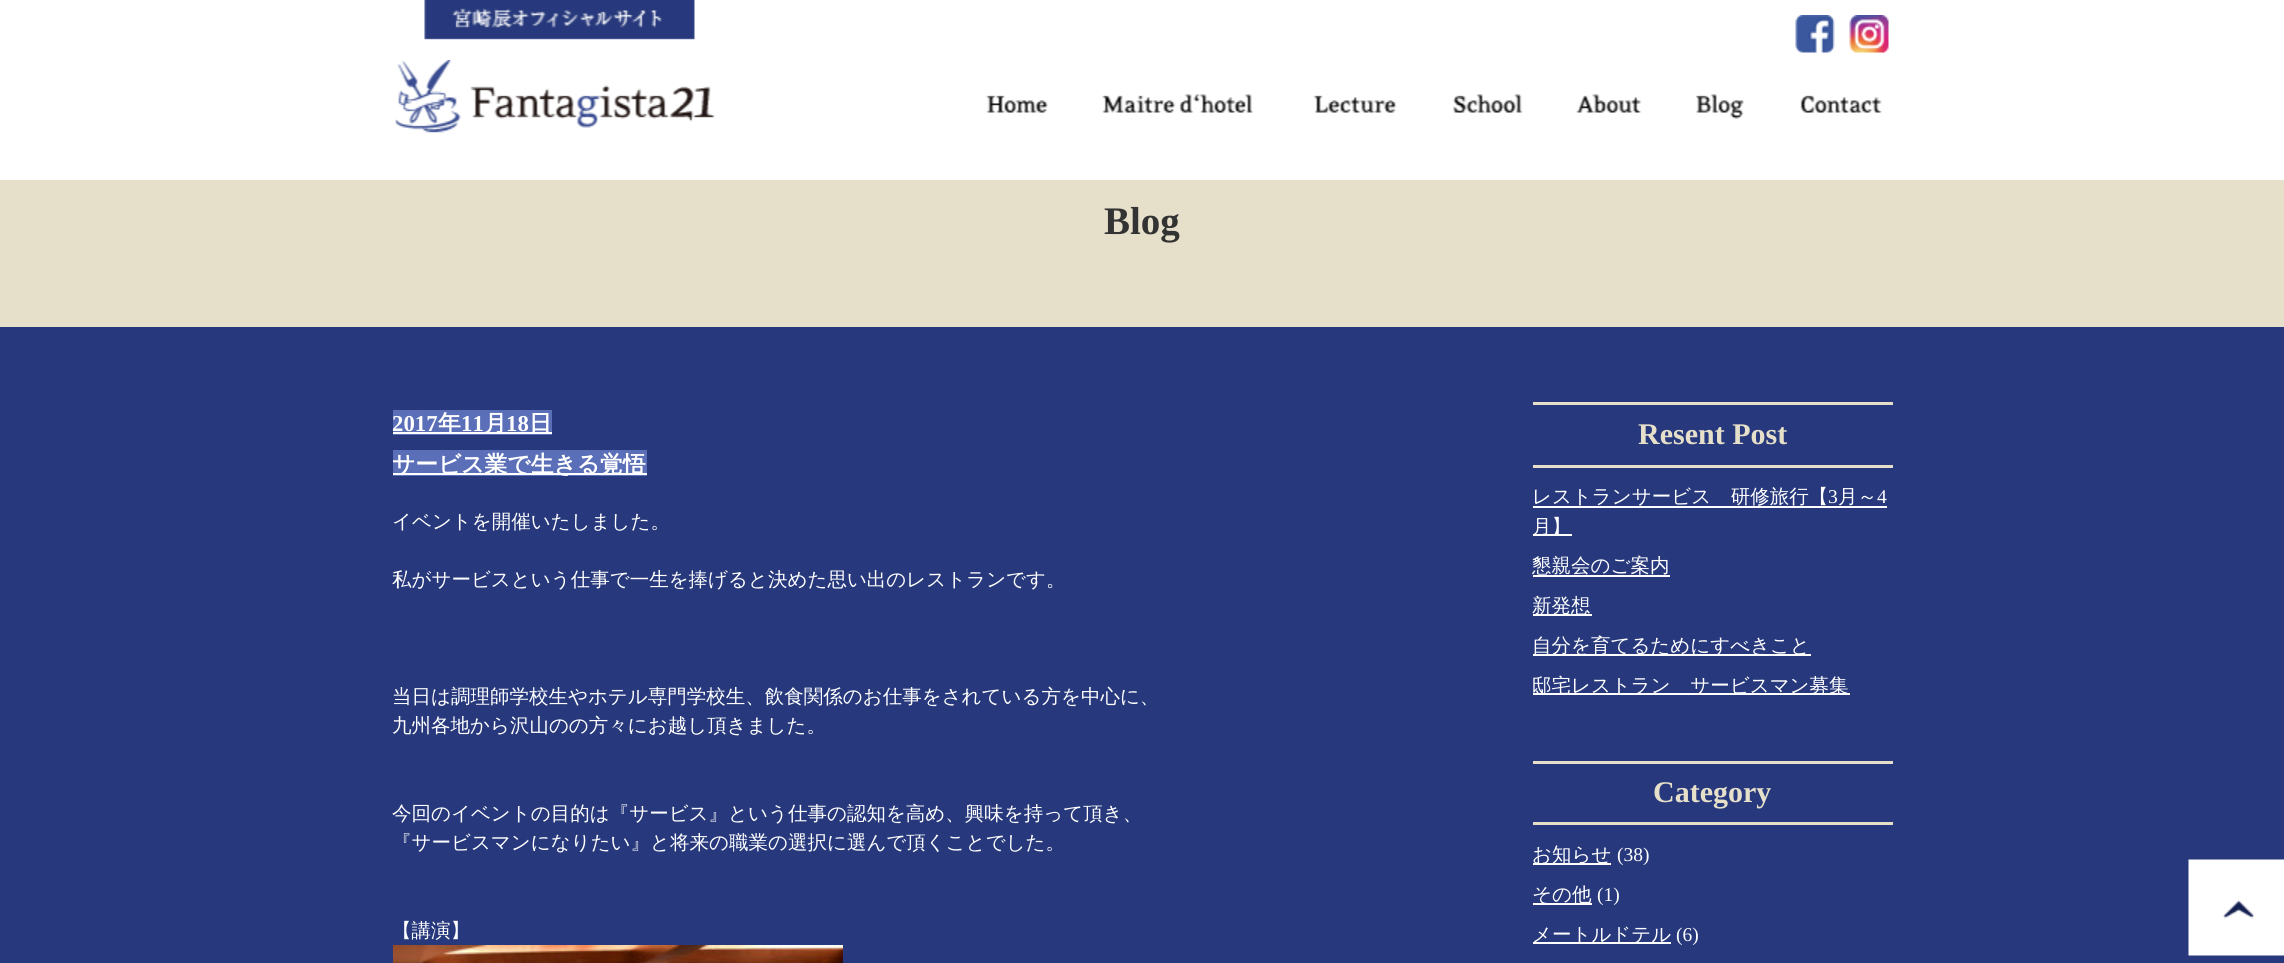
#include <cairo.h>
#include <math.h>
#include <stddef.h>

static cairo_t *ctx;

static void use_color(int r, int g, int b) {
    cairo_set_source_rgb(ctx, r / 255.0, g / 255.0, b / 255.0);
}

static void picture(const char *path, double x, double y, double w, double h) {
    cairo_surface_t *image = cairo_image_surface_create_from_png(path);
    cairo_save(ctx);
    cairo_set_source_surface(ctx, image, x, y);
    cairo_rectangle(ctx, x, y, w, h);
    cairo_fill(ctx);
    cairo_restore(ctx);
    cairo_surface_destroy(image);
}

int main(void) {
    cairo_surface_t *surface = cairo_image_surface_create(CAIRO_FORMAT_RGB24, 2284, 963);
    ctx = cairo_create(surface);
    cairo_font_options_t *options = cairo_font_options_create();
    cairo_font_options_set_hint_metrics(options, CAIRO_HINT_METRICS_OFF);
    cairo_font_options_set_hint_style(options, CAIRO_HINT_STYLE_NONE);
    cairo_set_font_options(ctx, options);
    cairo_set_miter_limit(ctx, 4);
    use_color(39, 57, 124);
    cairo_paint(ctx);
    use_color(255, 255, 255);
    cairo_rectangle(ctx, 0, 0, 2284, 180);
    cairo_fill(ctx);
    picture("img1.png", 424, 0, 271, 40);
    picture("img2.png", 1795, 15, 40, 38);
    picture("img3.png", 1849, 15, 40, 38);
    picture("img4.png", 395, 60, 320, 73);
    picture("img5.png", 986, 95, 62, 18);
    picture("img6.png", 1102, 94, 152, 19);
    picture("img7.png", 1313, 95, 83, 18);
    picture("img8.png", 1452, 94, 71, 19);
    picture("img9.png", 1576, 94, 66, 19);
    picture("img10.png", 1695, 94, 49, 25);
    picture("img11.png", 1800, 95, 82, 18);
    use_color(230, 224, 202);
    cairo_rectangle(ctx, 0, 180, 2284, 147);
    cairo_fill(ctx);
    cairo_select_font_face(ctx, "Liberation Serif", CAIRO_FONT_SLANT_NORMAL, CAIRO_FONT_WEIGHT_BOLD);
    cairo_set_font_size(ctx, 39);
    use_color(51, 51, 51);
    cairo_move_to(ctx, 1104, 234);
    cairo_show_text(ctx, "Blog");
    use_color(91, 111, 184);
    cairo_rectangle(ctx, 393, 410, 159, 25);
    cairo_fill(ctx);
    cairo_set_font_size(ctx, 22.75);
    use_color(255, 255, 255);
    cairo_move_to(ctx, 392, 431);
    cairo_show_text(ctx, "2017");
    cairo_rectangle(ctx, 393, 432, 159, 2);
    cairo_fill(ctx);
    cairo_select_font_face(ctx, "WenQuanYi Zen Hei", CAIRO_FONT_SLANT_NORMAL, CAIRO_FONT_WEIGHT_BOLD);
    cairo_move_to(ctx, 438, 431);
    cairo_show_text(ctx, "年");
    cairo_select_font_face(ctx, "Liberation Serif", CAIRO_FONT_SLANT_NORMAL, CAIRO_FONT_WEIGHT_BOLD);
    cairo_move_to(ctx, 461, 431);
    cairo_show_text(ctx, "11");
    cairo_select_font_face(ctx, "WenQuanYi Zen Hei", CAIRO_FONT_SLANT_NORMAL, CAIRO_FONT_WEIGHT_BOLD);
    cairo_move_to(ctx, 484, 431);
    cairo_show_text(ctx, "月");
    cairo_select_font_face(ctx, "Liberation Serif", CAIRO_FONT_SLANT_NORMAL, CAIRO_FONT_WEIGHT_BOLD);
    cairo_move_to(ctx, 506, 431);
    cairo_show_text(ctx, "18");
    cairo_select_font_face(ctx, "WenQuanYi Zen Hei", CAIRO_FONT_SLANT_NORMAL, CAIRO_FONT_WEIGHT_BOLD);
    cairo_move_to(ctx, 529, 431);
    cairo_show_text(ctx, "日");
    use_color(91, 111, 184);
    cairo_rectangle(ctx, 393, 450, 254, 26);
    cairo_fill(ctx);
    use_color(255, 255, 255);
    cairo_rectangle(ctx, 393, 473, 254, 2);
    cairo_fill(ctx);
    cairo_move_to(ctx, 392, 472);
    cairo_show_text(ctx, "サービス業で生きる覚悟");
    cairo_select_font_face(ctx, "WenQuanYi Zen Hei Medium", CAIRO_FONT_SLANT_NORMAL, CAIRO_FONT_WEIGHT_NORMAL);
    cairo_set_font_size(ctx, 19.5);
    cairo_move_to(ctx, 392, 528);
    cairo_show_text(ctx, "イベントを開催いたしました。");
    cairo_move_to(ctx, 392, 586);
    cairo_show_text(ctx, "私がサービスという仕事で一生を捧げると決めた思い出のレストランです。");
    cairo_move_to(ctx, 392, 703);
    cairo_show_text(ctx, "当日は調理師学校生やホテル専門学校生、飲食関係のお仕事をされている方を中心に、");
    cairo_move_to(ctx, 392, 732);
    cairo_show_text(ctx, "九州各地から沢山のの方々にお越し頂きました。");
    cairo_move_to(ctx, 392, 820);
    cairo_show_text(ctx, "今回のイベントの目的は『サービス』という仕事の認知を高め、興味を持って頂き、");
    cairo_move_to(ctx, 392, 849);
    cairo_show_text(ctx, "『サービスマンになりたい』と将来の職業の選択に選んで頂くことでした。");
    cairo_move_to(ctx, 392, 937);
    cairo_show_text(ctx, "【講演】");
    picture("img12.png", 393, 945, 450, 18);
    use_color(230, 224, 202);
    cairo_rectangle(ctx, 1533, 402, 360, 3);
    cairo_fill(ctx);
    cairo_rectangle(ctx, 1533, 465, 360, 3);
    cairo_fill(ctx);
    cairo_select_font_face(ctx, "Liberation Serif", CAIRO_FONT_SLANT_NORMAL, CAIRO_FONT_WEIGHT_BOLD);
    cairo_set_font_size(ctx, 30);
    cairo_move_to(ctx, 1638, 444);
    cairo_show_text(ctx, "Resent Post");
    cairo_select_font_face(ctx, "WenQuanYi Zen Hei Medium", CAIRO_FONT_SLANT_NORMAL, CAIRO_FONT_WEIGHT_NORMAL);
    cairo_set_font_size(ctx, 19.5);
    use_color(255, 255, 255);
    cairo_move_to(ctx, 1532, 503);
    cairo_show_text(ctx, "レストランサービス　研修旅行【");
    cairo_select_font_face(ctx, "Liberation Serif", CAIRO_FONT_SLANT_NORMAL, CAIRO_FONT_WEIGHT_NORMAL);
    cairo_move_to(ctx, 1828, 503);
    cairo_show_text(ctx, "3");
    cairo_rectangle(ctx, 1533, 506, 354, 2);
    cairo_fill(ctx);
    cairo_select_font_face(ctx, "WenQuanYi Zen Hei Medium", CAIRO_FONT_SLANT_NORMAL, CAIRO_FONT_WEIGHT_NORMAL);
    cairo_move_to(ctx, 1838, 503);
    cairo_show_text(ctx, "月～");
    cairo_select_font_face(ctx, "Liberation Serif", CAIRO_FONT_SLANT_NORMAL, CAIRO_FONT_WEIGHT_NORMAL);
    cairo_move_to(ctx, 1877, 503);
    cairo_show_text(ctx, "4");
    cairo_rectangle(ctx, 1533, 534, 39, 2);
    cairo_fill(ctx);
    cairo_select_font_face(ctx, "WenQuanYi Zen Hei Medium", CAIRO_FONT_SLANT_NORMAL, CAIRO_FONT_WEIGHT_NORMAL);
    cairo_move_to(ctx, 1532, 533);
    cairo_show_text(ctx, "月】");
    cairo_move_to(ctx, 1532, 572);
    cairo_show_text(ctx, "懇親会のご案内");
    cairo_rectangle(ctx, 1533, 575, 137, 2);
    cairo_fill(ctx);
    cairo_rectangle(ctx, 1533, 614, 59, 2);
    cairo_fill(ctx);
    cairo_move_to(ctx, 1532, 612);
    cairo_show_text(ctx, "新発想");
    cairo_rectangle(ctx, 1533, 654, 278, 2);
    cairo_fill(ctx);
    cairo_move_to(ctx, 1532, 652);
    cairo_show_text(ctx, "自分を育てるためにすべきこと");
    cairo_rectangle(ctx, 1533, 693, 317, 2);
    cairo_fill(ctx);
    cairo_move_to(ctx, 1532, 692);
    cairo_show_text(ctx, "邸宅レストラン　サービスマン募集");
    use_color(230, 224, 202);
    cairo_rectangle(ctx, 1533, 761, 360, 3);
    cairo_fill(ctx);
    cairo_rectangle(ctx, 1533, 822, 360, 3);
    cairo_fill(ctx);
    cairo_select_font_face(ctx, "Liberation Serif", CAIRO_FONT_SLANT_NORMAL, CAIRO_FONT_WEIGHT_BOLD);
    cairo_set_font_size(ctx, 30);
    cairo_move_to(ctx, 1653, 802);
    cairo_show_text(ctx, "Category");
    use_color(255, 255, 255);
    cairo_rectangle(ctx, 1533, 863, 78, 2);
    cairo_fill(ctx);
    cairo_select_font_face(ctx, "WenQuanYi Zen Hei Medium", CAIRO_FONT_SLANT_NORMAL, CAIRO_FONT_WEIGHT_NORMAL);
    cairo_set_font_size(ctx, 19.5);
    cairo_move_to(ctx, 1532, 861);
    cairo_show_text(ctx, "お知らせ");
    cairo_select_font_face(ctx, "Liberation Serif", CAIRO_FONT_SLANT_NORMAL, CAIRO_FONT_WEIGHT_NORMAL);
    cairo_move_to(ctx, 1617, 861);
    cairo_show_text(ctx, "(38)");
    cairo_rectangle(ctx, 1533, 903, 59, 2);
    cairo_fill(ctx);
    cairo_select_font_face(ctx, "WenQuanYi Zen Hei Medium", CAIRO_FONT_SLANT_NORMAL, CAIRO_FONT_WEIGHT_NORMAL);
    cairo_move_to(ctx, 1532, 901);
    cairo_show_text(ctx, "その他");
    cairo_select_font_face(ctx, "Liberation Serif", CAIRO_FONT_SLANT_NORMAL, CAIRO_FONT_WEIGHT_NORMAL);
    cairo_move_to(ctx, 1597, 901);
    cairo_show_text(ctx, "(1)");
    cairo_rectangle(ctx, 1533, 942, 138, 2);
    cairo_fill(ctx);
    cairo_select_font_face(ctx, "WenQuanYi Zen Hei Medium", CAIRO_FONT_SLANT_NORMAL, CAIRO_FONT_WEIGHT_NORMAL);
    cairo_move_to(ctx, 1532, 941);
    cairo_show_text(ctx, "メートルドテル");
    cairo_select_font_face(ctx, "Liberation Serif", CAIRO_FONT_SLANT_NORMAL, CAIRO_FONT_WEIGHT_NORMAL);
    cairo_move_to(ctx, 1676, 941);
    cairo_show_text(ctx, "(6)");
    picture("img13.png", 2188, 859, 96, 97);
    cairo_surface_write_to_png(surface, "result.png");
    cairo_font_options_destroy(options);
    cairo_destroy(ctx);
    cairo_surface_destroy(surface);
    return 0;
}
